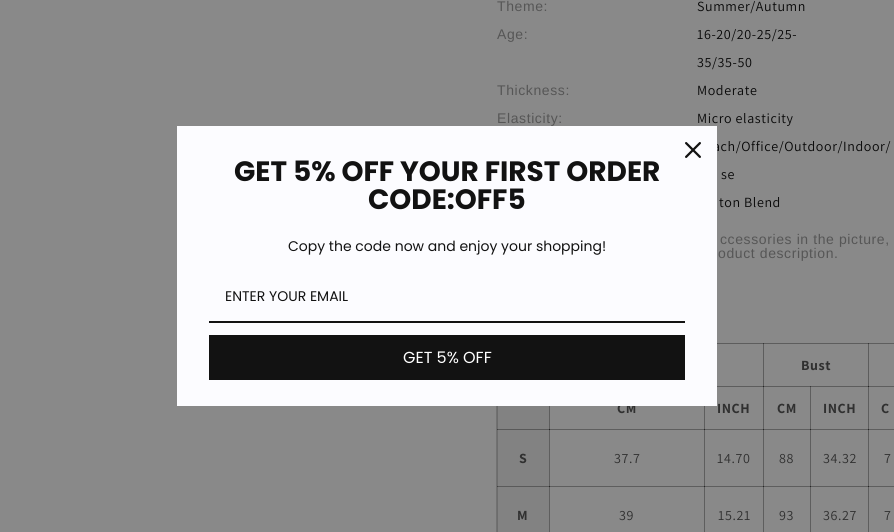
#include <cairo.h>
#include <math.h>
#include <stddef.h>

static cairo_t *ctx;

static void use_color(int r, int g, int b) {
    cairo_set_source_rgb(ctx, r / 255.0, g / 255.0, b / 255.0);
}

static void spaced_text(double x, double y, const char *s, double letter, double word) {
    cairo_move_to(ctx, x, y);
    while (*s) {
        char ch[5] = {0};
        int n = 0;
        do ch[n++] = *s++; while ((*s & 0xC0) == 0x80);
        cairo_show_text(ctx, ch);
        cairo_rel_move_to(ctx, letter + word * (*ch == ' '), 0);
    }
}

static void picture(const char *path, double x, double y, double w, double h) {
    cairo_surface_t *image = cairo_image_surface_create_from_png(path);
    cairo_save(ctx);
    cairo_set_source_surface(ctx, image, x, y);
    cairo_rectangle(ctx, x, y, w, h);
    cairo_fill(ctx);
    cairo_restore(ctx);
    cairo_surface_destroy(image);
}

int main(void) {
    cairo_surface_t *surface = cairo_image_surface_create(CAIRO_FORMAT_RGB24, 894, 532);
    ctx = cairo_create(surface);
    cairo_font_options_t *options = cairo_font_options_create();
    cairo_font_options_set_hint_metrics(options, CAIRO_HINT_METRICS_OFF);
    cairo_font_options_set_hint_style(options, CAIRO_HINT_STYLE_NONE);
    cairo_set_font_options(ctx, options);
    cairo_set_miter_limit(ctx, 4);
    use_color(137, 137, 137);
    cairo_paint(ctx);
    use_color(113, 113, 113);
    cairo_rectangle(ctx, 549, 406, 1, 24);
    cairo_fill(ctx);
    use_color(94, 94, 94);
    cairo_rectangle(ctx, 704, 406, 1, 24);
    cairo_fill(ctx);
    use_color(113, 113, 113);
    cairo_rectangle(ctx, 717, 386, 47, 1);
    cairo_fill(ctx);
    use_color(94, 94, 94);
    cairo_rectangle(ctx, 763, 386, 1, 44);
    cairo_fill(ctx);
    use_color(113, 113, 113);
    cairo_rectangle(ctx, 763, 386, 48, 1);
    cairo_fill(ctx);
    use_color(67, 67, 67);
    cairo_rectangle(ctx, 763, 386, 1, 1);
    cairo_fill(ctx);
    use_color(94, 94, 94);
    cairo_rectangle(ctx, 810, 386, 1, 44);
    cairo_fill(ctx);
    use_color(113, 113, 113);
    cairo_rectangle(ctx, 810, 386, 59, 1);
    cairo_fill(ctx);
    use_color(67, 67, 67);
    cairo_rectangle(ctx, 810, 386, 1, 1);
    cairo_fill(ctx);
    use_color(94, 94, 94);
    cairo_rectangle(ctx, 868, 386, 1, 44);
    cairo_fill(ctx);
    cairo_rectangle(ctx, 549, 429, 1, 103);
    cairo_fill(ctx);
    cairo_rectangle(ctx, 549, 429, 156, 1);
    cairo_fill(ctx);
    use_color(49, 49, 49);
    cairo_rectangle(ctx, 549, 429, 1, 1);
    cairo_fill(ctx);
    use_color(94, 94, 94);
    cairo_rectangle(ctx, 704, 429, 1, 58);
    cairo_fill(ctx);
    cairo_rectangle(ctx, 704, 429, 60, 1);
    cairo_fill(ctx);
    use_color(38, 38, 38);
    cairo_rectangle(ctx, 704, 429, 1, 1);
    cairo_fill(ctx);
    use_color(94, 94, 94);
    cairo_rectangle(ctx, 763, 429, 1, 58);
    cairo_fill(ctx);
    cairo_rectangle(ctx, 763, 429, 48, 1);
    cairo_fill(ctx);
    use_color(38, 38, 38);
    cairo_rectangle(ctx, 763, 429, 1, 1);
    cairo_fill(ctx);
    use_color(94, 94, 94);
    cairo_rectangle(ctx, 810, 429, 1, 58);
    cairo_fill(ctx);
    cairo_rectangle(ctx, 810, 429, 59, 1);
    cairo_fill(ctx);
    use_color(38, 38, 38);
    cairo_rectangle(ctx, 810, 429, 1, 1);
    cairo_fill(ctx);
    use_color(94, 94, 94);
    cairo_rectangle(ctx, 868, 429, 1, 58);
    cairo_fill(ctx);
    cairo_rectangle(ctx, 549, 486, 156, 1);
    cairo_fill(ctx);
    use_color(38, 38, 38);
    cairo_rectangle(ctx, 549, 486, 1, 1);
    cairo_fill(ctx);
    use_color(94, 94, 94);
    cairo_rectangle(ctx, 704, 486, 1, 46);
    cairo_fill(ctx);
    cairo_rectangle(ctx, 704, 486, 60, 1);
    cairo_fill(ctx);
    use_color(38, 38, 38);
    cairo_rectangle(ctx, 704, 486, 1, 1);
    cairo_fill(ctx);
    use_color(94, 94, 94);
    cairo_rectangle(ctx, 763, 486, 1, 46);
    cairo_fill(ctx);
    cairo_rectangle(ctx, 763, 486, 48, 1);
    cairo_fill(ctx);
    use_color(38, 38, 38);
    cairo_rectangle(ctx, 763, 486, 1, 1);
    cairo_fill(ctx);
    use_color(94, 94, 94);
    cairo_rectangle(ctx, 810, 486, 1, 46);
    cairo_fill(ctx);
    cairo_rectangle(ctx, 810, 486, 59, 1);
    cairo_fill(ctx);
    use_color(38, 38, 38);
    cairo_rectangle(ctx, 810, 486, 1, 1);
    cairo_fill(ctx);
    use_color(94, 94, 94);
    cairo_rectangle(ctx, 868, 486, 1, 46);
    cairo_fill(ctx);
    cairo_select_font_face(ctx, "Assistant", CAIRO_FONT_SLANT_NORMAL, CAIRO_FONT_WEIGHT_NORMAL);
    cairo_set_font_size(ctx, 14);
    use_color(9, 9, 9);
    spaced_text(713, 151, "ach/Office/Outdoor/Indoor/", 0.6, 0);
    cairo_rectangle(ctx, 496.5, 343.5, 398, 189);
    use_color(113, 113, 113);
    cairo_set_line_width(ctx, 1);
    cairo_stroke(ctx);
    cairo_select_font_face(ctx, "Assistant", CAIRO_FONT_SLANT_NORMAL, CAIRO_FONT_WEIGHT_BOLD);
    use_color(48, 48, 48);
    spaced_text(617, 413, "CM", 0.6, 0);
    use_color(252, 252, 255);
    cairo_rectangle(ctx, 177, 126, 540, 280);
    cairo_fill(ctx);
    picture("img1.png", 685, 142, 16, 16);
    cairo_select_font_face(ctx, "Poppins", CAIRO_FONT_SLANT_NORMAL, CAIRO_FONT_WEIGHT_BOLD);
    cairo_set_font_size(ctx, 28);
    use_color(18, 18, 18);
    cairo_move_to(ctx, 234, 181);
    cairo_show_text(ctx, "GET 5% OFF YOUR FIRST ORDER");
    cairo_move_to(ctx, 368, 209);
    cairo_show_text(ctx, "CODE:OFF5");
    cairo_select_font_face(ctx, "Poppins", CAIRO_FONT_SLANT_NORMAL, CAIRO_FONT_WEIGHT_NORMAL);
    cairo_set_font_size(ctx, 14);
    cairo_move_to(ctx, 288, 251);
    cairo_show_text(ctx, "Copy the code now and enjoy your shopping!");
    cairo_rectangle(ctx, 209, 321, 476, 2);
    cairo_fill(ctx);
    cairo_move_to(ctx, 225, 301);
    cairo_show_text(ctx, "ENTER YOUR EMAIL");
    cairo_rectangle(ctx, 209, 335, 476, 45);
    cairo_fill(ctx);
    cairo_set_font_size(ctx, 16);
    use_color(255, 255, 255);
    cairo_move_to(ctx, 403, 363);
    cairo_show_text(ctx, "GET 5% OFF");
    cairo_select_font_face(ctx, "Liberation Sans", CAIRO_FONT_SLANT_NORMAL, CAIRO_FONT_WEIGHT_NORMAL);
    cairo_set_font_size(ctx, 14);
    use_color(86, 86, 86);
    spaced_text(497, 11, "Theme:", 0.6, 0);
    cairo_select_font_face(ctx, "Assistant", CAIRO_FONT_SLANT_NORMAL, CAIRO_FONT_WEIGHT_NORMAL);
    use_color(9, 9, 9);
    spaced_text(697, 11, "Summer/Autumn", 0.6, 0);
    cairo_select_font_face(ctx, "Liberation Sans", CAIRO_FONT_SLANT_NORMAL, CAIRO_FONT_WEIGHT_NORMAL);
    use_color(86, 86, 86);
    spaced_text(497, 39, "Age:", 0.6, 0);
    cairo_select_font_face(ctx, "Assistant", CAIRO_FONT_SLANT_NORMAL, CAIRO_FONT_WEIGHT_NORMAL);
    use_color(9, 9, 9);
    spaced_text(697, 39, "16-20/20-25/25-", 0.6, 0);
    spaced_text(697, 67, "35/35-50", 0.6, 0);
    cairo_select_font_face(ctx, "Liberation Sans", CAIRO_FONT_SLANT_NORMAL, CAIRO_FONT_WEIGHT_NORMAL);
    use_color(86, 86, 86);
    spaced_text(497, 95, "Thickness:", 0.6, 0);
    cairo_select_font_face(ctx, "Assistant", CAIRO_FONT_SLANT_NORMAL, CAIRO_FONT_WEIGHT_NORMAL);
    use_color(9, 9, 9);
    spaced_text(697, 95, "Moderate", 0.6, 0);
    cairo_select_font_face(ctx, "Liberation Sans", CAIRO_FONT_SLANT_NORMAL, CAIRO_FONT_WEIGHT_NORMAL);
    use_color(86, 86, 86);
    spaced_text(497, 123, "Elasticity:", 0.6, 0);
    cairo_select_font_face(ctx, "Assistant", CAIRO_FONT_SLANT_NORMAL, CAIRO_FONT_WEIGHT_NORMAL);
    use_color(9, 9, 9);
    spaced_text(697, 123, "Micro elasticity", 0.6, 0);
    spaced_text(721, 179, "se", 0.6, 0);
    spaced_text(719, 207, "ton Blend", 0.6, 0);
    cairo_select_font_face(ctx, "Liberation Sans", CAIRO_FONT_SLANT_NORMAL, CAIRO_FONT_WEIGHT_NORMAL);
    use_color(86, 86, 86);
    spaced_text(720, 244, "ccessories in the picture,", 0.6, 0);
    spaced_text(718, 258, "oduct description.", 0.6, 0);
    use_color(94, 94, 94);
    cairo_rectangle(ctx, 868, 343, 26, 1);
    cairo_fill(ctx);
    cairo_rectangle(ctx, 868, 386, 26, 1);
    cairo_fill(ctx);
    use_color(57, 57, 57);
    cairo_rectangle(ctx, 868, 386, 1, 1);
    cairo_fill(ctx);
    cairo_set_source_rgba(ctx, 0.071, 0.071, 0.071, 0.2);
    cairo_rectangle(ctx, 868, 343, 1, 44);
    cairo_fill(ctx);
    cairo_rectangle(ctx, 763, 343, 106, 1);
    cairo_fill(ctx);
    cairo_rectangle(ctx, 868, 343, 1, 44);
    cairo_fill(ctx);
    cairo_rectangle(ctx, 763, 386, 106, 1);
    cairo_fill(ctx);
    cairo_rectangle(ctx, 763, 343, 1, 44);
    cairo_fill(ctx);
    cairo_rectangle(ctx, 717, 343, 47, 1);
    cairo_fill(ctx);
    cairo_rectangle(ctx, 763, 343, 1, 44);
    cairo_fill(ctx);
    cairo_rectangle(ctx, 717, 386, 47, 1);
    cairo_fill(ctx);
    cairo_select_font_face(ctx, "Assistant", CAIRO_FONT_SLANT_NORMAL, CAIRO_FONT_WEIGHT_BOLD);
    use_color(48, 48, 48);
    spaced_text(801, 370, "Bust", 0.6, 0);
    use_color(130, 130, 130);
    cairo_rectangle(ctx, 497, 406, 52, 23);
    cairo_fill(ctx);
    cairo_set_source_rgba(ctx, 0.071, 0.071, 0.071, 0.2);
    cairo_rectangle(ctx, 549, 406, 1, 24);
    cairo_fill(ctx);
    use_color(108, 108, 108);
    cairo_rectangle(ctx, 497, 429, 1, 103);
    cairo_fill(ctx);
    cairo_rectangle(ctx, 497, 429, 52, 1);
    cairo_fill(ctx);
    use_color(90, 90, 90);
    cairo_rectangle(ctx, 497, 429, 1, 1);
    cairo_fill(ctx);
    cairo_set_source_rgba(ctx, 0.071, 0.071, 0.071, 0.2);
    cairo_rectangle(ctx, 497, 429, 53, 1);
    cairo_fill(ctx);
    cairo_rectangle(ctx, 497, 406, 1, 24);
    cairo_fill(ctx);
    use_color(48, 48, 48);
    spaced_text(717, 413, "INCH", 0.6, 0);
    spaced_text(777, 413, "CM", 0.6, 0);
    spaced_text(823, 413, "INCH", 0.6, 0);
    spaced_text(881, 413, "C", 0.6, 0);
    use_color(130, 130, 130);
    cairo_rectangle(ctx, 498, 430, 51, 56);
    cairo_fill(ctx);
    use_color(48, 48, 48);
    spaced_text(519, 463, "S", 0.6, 0);
    cairo_select_font_face(ctx, "Assistant", CAIRO_FONT_SLANT_NORMAL, CAIRO_FONT_WEIGHT_NORMAL);
    spaced_text(614, 463, "37.7", 0.6, 0);
    spaced_text(717, 463, "14.70", 0.6, 0);
    spaced_text(779, 463, "88", 0.6, 0);
    spaced_text(823, 463, "34.32", 0.6, 0);
    use_color(94, 94, 94);
    cairo_rectangle(ctx, 868, 429, 26, 1);
    cairo_fill(ctx);
    use_color(38, 38, 38);
    cairo_rectangle(ctx, 868, 429, 1, 1);
    cairo_fill(ctx);
    use_color(48, 48, 48);
    spaced_text(884, 463, "7", 0.6, 0);
    use_color(130, 130, 130);
    cairo_rectangle(ctx, 498, 487, 51, 45);
    cairo_fill(ctx);
    use_color(90, 90, 90);
    cairo_rectangle(ctx, 497, 486, 52, 1);
    cairo_fill(ctx);
    use_color(64, 64, 64);
    cairo_rectangle(ctx, 497, 486, 1, 1);
    cairo_fill(ctx);
    cairo_select_font_face(ctx, "Assistant", CAIRO_FONT_SLANT_NORMAL, CAIRO_FONT_WEIGHT_BOLD);
    use_color(48, 48, 48);
    spaced_text(517, 520, "M", 0.6, 0);
    cairo_select_font_face(ctx, "Assistant", CAIRO_FONT_SLANT_NORMAL, CAIRO_FONT_WEIGHT_NORMAL);
    spaced_text(619, 520, "39", 0.6, 0);
    spaced_text(718, 520, "15.21", 0.6, 0);
    spaced_text(779, 520, "93", 0.6, 0);
    spaced_text(823, 520, "36.27", 0.6, 0);
    use_color(94, 94, 94);
    cairo_rectangle(ctx, 868, 486, 26, 1);
    cairo_fill(ctx);
    use_color(38, 38, 38);
    cairo_rectangle(ctx, 868, 486, 1, 1);
    cairo_fill(ctx);
    use_color(48, 48, 48);
    spaced_text(884, 520, "7", 0.6, 0);
    cairo_surface_write_to_png(surface, "result.png");
    cairo_font_options_destroy(options);
    cairo_destroy(ctx);
    cairo_surface_destroy(surface);
    return 0;
}
